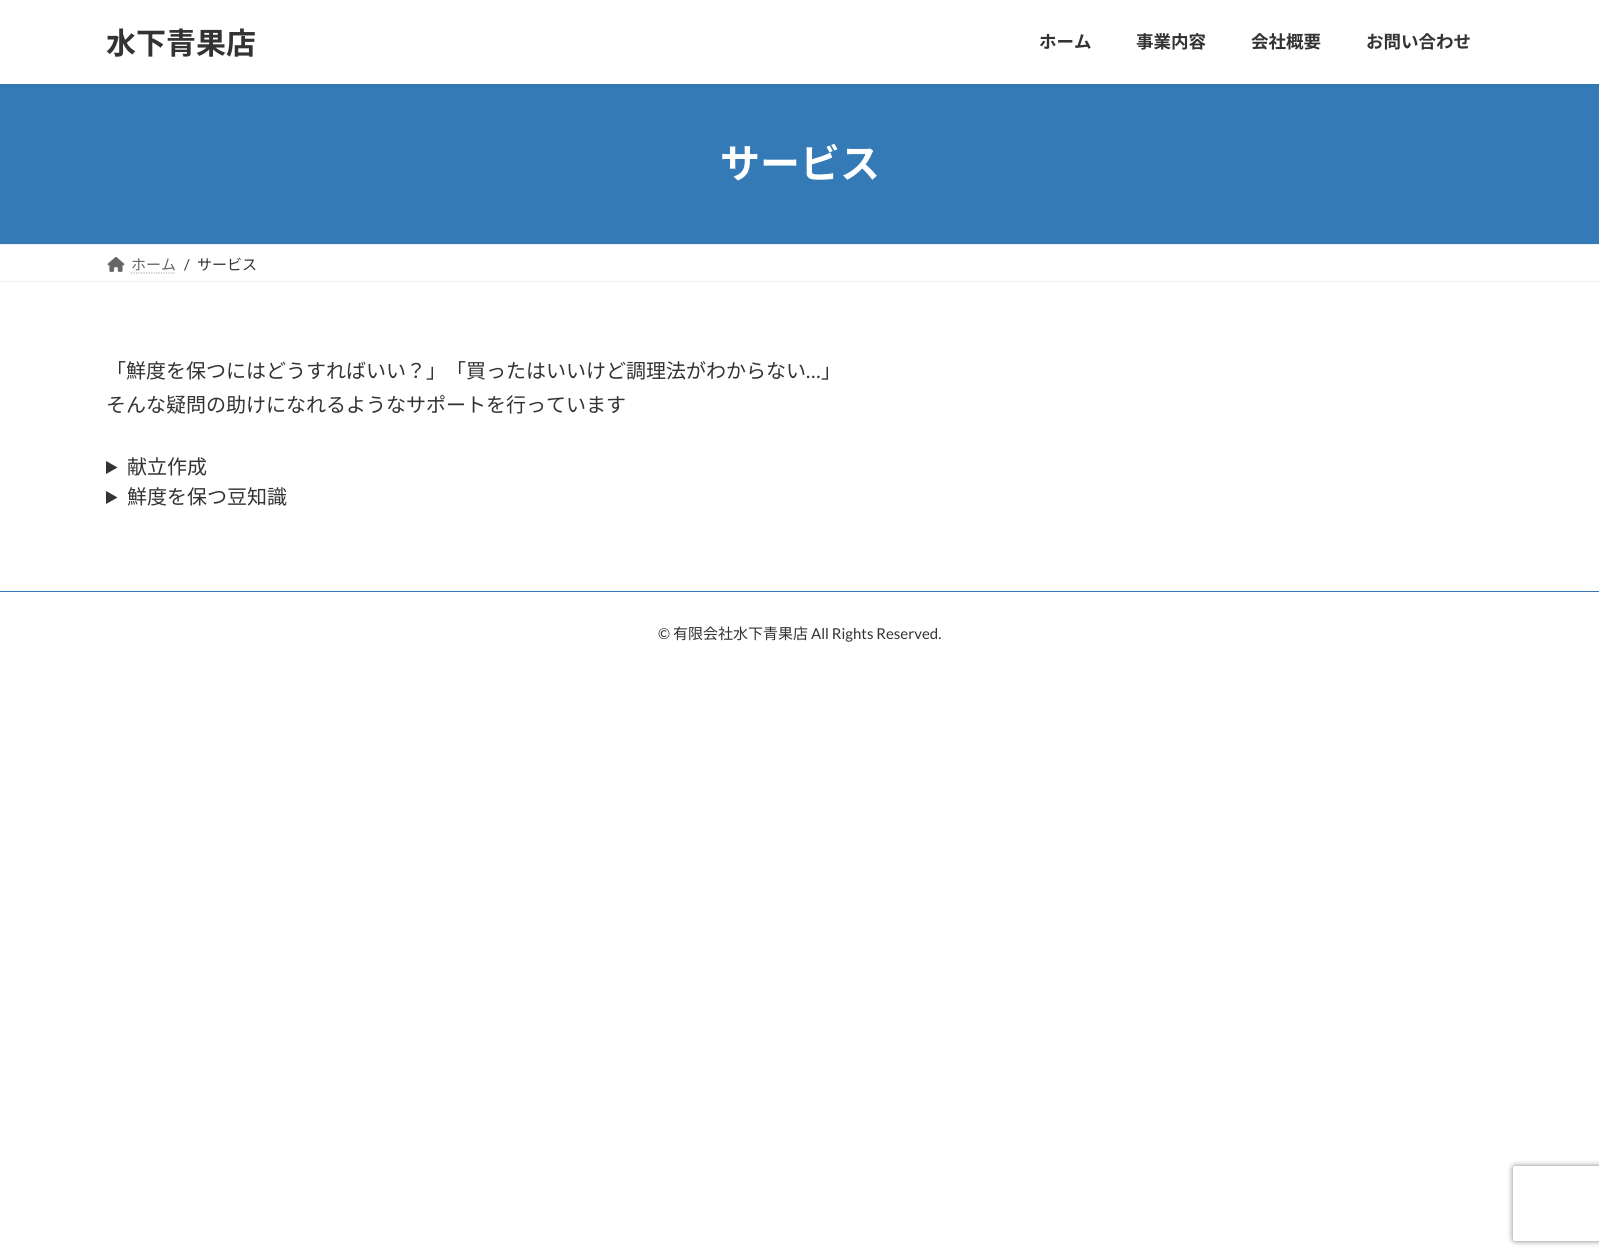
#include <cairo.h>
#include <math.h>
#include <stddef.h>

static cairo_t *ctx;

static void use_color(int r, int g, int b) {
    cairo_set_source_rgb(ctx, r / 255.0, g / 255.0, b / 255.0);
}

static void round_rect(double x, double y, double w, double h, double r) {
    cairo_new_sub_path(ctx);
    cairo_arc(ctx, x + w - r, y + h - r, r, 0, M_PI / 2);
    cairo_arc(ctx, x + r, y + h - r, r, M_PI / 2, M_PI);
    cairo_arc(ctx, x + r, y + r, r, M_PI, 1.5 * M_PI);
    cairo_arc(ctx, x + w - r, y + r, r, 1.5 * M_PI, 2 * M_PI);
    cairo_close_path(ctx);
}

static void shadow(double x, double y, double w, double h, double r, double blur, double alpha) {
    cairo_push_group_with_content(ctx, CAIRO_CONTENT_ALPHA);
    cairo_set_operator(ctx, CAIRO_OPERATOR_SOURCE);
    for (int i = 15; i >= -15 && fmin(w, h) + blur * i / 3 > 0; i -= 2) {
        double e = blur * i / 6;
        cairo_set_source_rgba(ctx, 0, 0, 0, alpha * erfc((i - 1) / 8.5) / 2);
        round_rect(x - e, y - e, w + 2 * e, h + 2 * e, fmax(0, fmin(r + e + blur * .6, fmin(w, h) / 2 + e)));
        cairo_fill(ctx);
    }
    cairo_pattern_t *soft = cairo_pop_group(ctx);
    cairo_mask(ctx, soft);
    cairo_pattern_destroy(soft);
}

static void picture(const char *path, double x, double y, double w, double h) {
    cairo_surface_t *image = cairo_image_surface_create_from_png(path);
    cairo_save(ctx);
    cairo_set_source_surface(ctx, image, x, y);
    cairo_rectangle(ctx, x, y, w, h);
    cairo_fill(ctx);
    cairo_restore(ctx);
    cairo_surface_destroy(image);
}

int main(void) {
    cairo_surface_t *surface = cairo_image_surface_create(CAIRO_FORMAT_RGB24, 1599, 1258);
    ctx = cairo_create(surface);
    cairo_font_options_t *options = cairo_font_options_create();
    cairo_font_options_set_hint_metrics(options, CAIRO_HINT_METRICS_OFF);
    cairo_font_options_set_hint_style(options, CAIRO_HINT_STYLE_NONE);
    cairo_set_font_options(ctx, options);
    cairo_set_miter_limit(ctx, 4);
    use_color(255, 255, 255);
    cairo_paint(ctx);
    use_color(51, 122, 183);
    cairo_rectangle(ctx, 0, 84, 1599, 160);
    cairo_fill(ctx);
    use_color(0, 0, 0);
    shadow(0, 1, 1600, 84, 0, 2, 0.05);
    use_color(255, 255, 255);
    cairo_rectangle(ctx, 0, 0, 1599, 84);
    cairo_fill(ctx);
    cairo_select_font_face(ctx, "Noto Sans JP", CAIRO_FONT_SLANT_NORMAL, CAIRO_FONT_WEIGHT_BOLD);
    cairo_set_font_size(ctx, 30);
    use_color(51, 51, 51);
    cairo_move_to(ctx, 106, 54);
    cairo_show_text(ctx, "水下青果店");
    cairo_set_font_size(ctx, 17.5);
    cairo_move_to(ctx, 1039, 48);
    cairo_show_text(ctx, "ホーム");
    cairo_move_to(ctx, 1136, 48);
    cairo_show_text(ctx, "事業内容");
    cairo_move_to(ctx, 1251, 48);
    cairo_show_text(ctx, "会社概要");
    cairo_move_to(ctx, 1366, 48);
    cairo_show_text(ctx, "お問い合わせ");
    cairo_set_font_size(ctx, 40);
    use_color(255, 255, 255);
    cairo_move_to(ctx, 720, 178);
    cairo_show_text(ctx, "サービス");
    use_color(240, 240, 240);
    cairo_rectangle(ctx, 0, 244, 1599, 1);
    cairo_fill(ctx);
    cairo_rectangle(ctx, 0, 281, 1599, 1);
    cairo_fill(ctx);
    picture("img1.png", 107, 256, 18, 16);
    cairo_select_font_face(ctx, "Noto Sans JP", CAIRO_FONT_SLANT_NORMAL, CAIRO_FONT_WEIGHT_NORMAL);
    cairo_set_font_size(ctx, 15);
    use_color(102, 102, 102);
    cairo_move_to(ctx, 131, 270);
    cairo_show_text(ctx, "ホーム");
    cairo_new_path(ctx);
    cairo_move_to(ctx, 131, 273);
    cairo_line_to(ctx, 176, 273);
    use_color(179, 179, 179);
    cairo_set_line_width(ctx, 1.2);
    cairo_set_dash(ctx, (double[]){1.25, 1.25}, 2, 0);
    cairo_stroke(ctx);
    cairo_select_font_face(ctx, "Lato", CAIRO_FONT_SLANT_NORMAL, CAIRO_FONT_WEIGHT_NORMAL);
    use_color(51, 51, 51);
    cairo_move_to(ctx, 184, 270);
    cairo_show_text(ctx, "/");
    cairo_select_font_face(ctx, "Noto Sans JP", CAIRO_FONT_SLANT_NORMAL, CAIRO_FONT_WEIGHT_NORMAL);
    cairo_move_to(ctx, 197, 270);
    cairo_show_text(ctx, "サービス");
    cairo_set_font_size(ctx, 20);
    cairo_move_to(ctx, 106, 378);
    cairo_show_text(ctx, "「鮮度を保つにはどうすればいい？」「買ったはいいけど調理法がわからない");
    cairo_select_font_face(ctx, "Lato", CAIRO_FONT_SLANT_NORMAL, CAIRO_FONT_WEIGHT_NORMAL);
    cairo_move_to(ctx, 806, 378);
    cairo_show_text(ctx, "…");
    cairo_select_font_face(ctx, "Noto Sans JP", CAIRO_FONT_SLANT_NORMAL, CAIRO_FONT_WEIGHT_NORMAL);
    cairo_move_to(ctx, 821, 378);
    cairo_show_text(ctx, "」");
    cairo_move_to(ctx, 106, 412);
    cairo_show_text(ctx, "そんな疑問の助けになれるようなサポートを行っています");
    cairo_new_path(ctx);
    cairo_move_to(ctx, 106, 461);
    cairo_line_to(ctx, 117.5, 467.5);
    cairo_line_to(ctx, 106, 474);
    cairo_close_path(ctx);
    cairo_fill(ctx);
    cairo_move_to(ctx, 127, 474);
    cairo_show_text(ctx, "献立作成");
    cairo_new_path(ctx);
    cairo_move_to(ctx, 106, 491);
    cairo_line_to(ctx, 117.5, 497.5);
    cairo_line_to(ctx, 106, 504);
    cairo_close_path(ctx);
    cairo_fill(ctx);
    cairo_move_to(ctx, 127, 504);
    cairo_show_text(ctx, "鮮度を保つ豆知識");
    use_color(51, 122, 183);
    cairo_rectangle(ctx, 0, 591, 1599, 1);
    cairo_fill(ctx);
    cairo_select_font_face(ctx, "Lato", CAIRO_FONT_SLANT_NORMAL, CAIRO_FONT_WEIGHT_NORMAL);
    cairo_set_font_size(ctx, 15);
    use_color(51, 51, 51);
    cairo_move_to(ctx, 658, 639);
    cairo_show_text(ctx, "©");
    cairo_select_font_face(ctx, "Noto Sans JP", CAIRO_FONT_SLANT_NORMAL, CAIRO_FONT_WEIGHT_NORMAL);
    cairo_move_to(ctx, 673, 639);
    cairo_show_text(ctx, "有限会社水下青果店");
    cairo_select_font_face(ctx, "Lato", CAIRO_FONT_SLANT_NORMAL, CAIRO_FONT_WEIGHT_NORMAL);
    cairo_move_to(ctx, 811, 639);
    cairo_show_text(ctx, "All Rights Reserved.");
    cairo_save(ctx);
    cairo_set_fill_rule(ctx, CAIRO_FILL_RULE_EVEN_ODD);
    cairo_new_path(ctx);
    cairo_move_to(ctx, 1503, 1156);
    cairo_line_to(ctx, 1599, 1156);
    cairo_line_to(ctx, 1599, 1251);
    cairo_line_to(ctx, 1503, 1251);
    cairo_close_path(ctx);
    cairo_move_to(ctx, 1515.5, 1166);
    cairo_line_to(ctx, 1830.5, 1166);
    cairo_curve_to(ctx, 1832, 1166, 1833, 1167, 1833, 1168.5);
    cairo_line_to(ctx, 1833, 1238.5);
    cairo_curve_to(ctx, 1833, 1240, 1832, 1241, 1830.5, 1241);
    cairo_line_to(ctx, 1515.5, 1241);
    cairo_curve_to(ctx, 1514, 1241, 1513, 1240, 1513, 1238.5);
    cairo_line_to(ctx, 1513, 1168.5);
    cairo_curve_to(ctx, 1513, 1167, 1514, 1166, 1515.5, 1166);
    cairo_close_path(ctx);
    cairo_clip(ctx);
    use_color(128, 128, 128);
    shadow(1513, 1166, 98, 75, 2.5, 3, 1);
    cairo_restore(ctx);
    cairo_surface_write_to_png(surface, "result.png");
    cairo_font_options_destroy(options);
    cairo_destroy(ctx);
    cairo_surface_destroy(surface);
    return 0;
}
